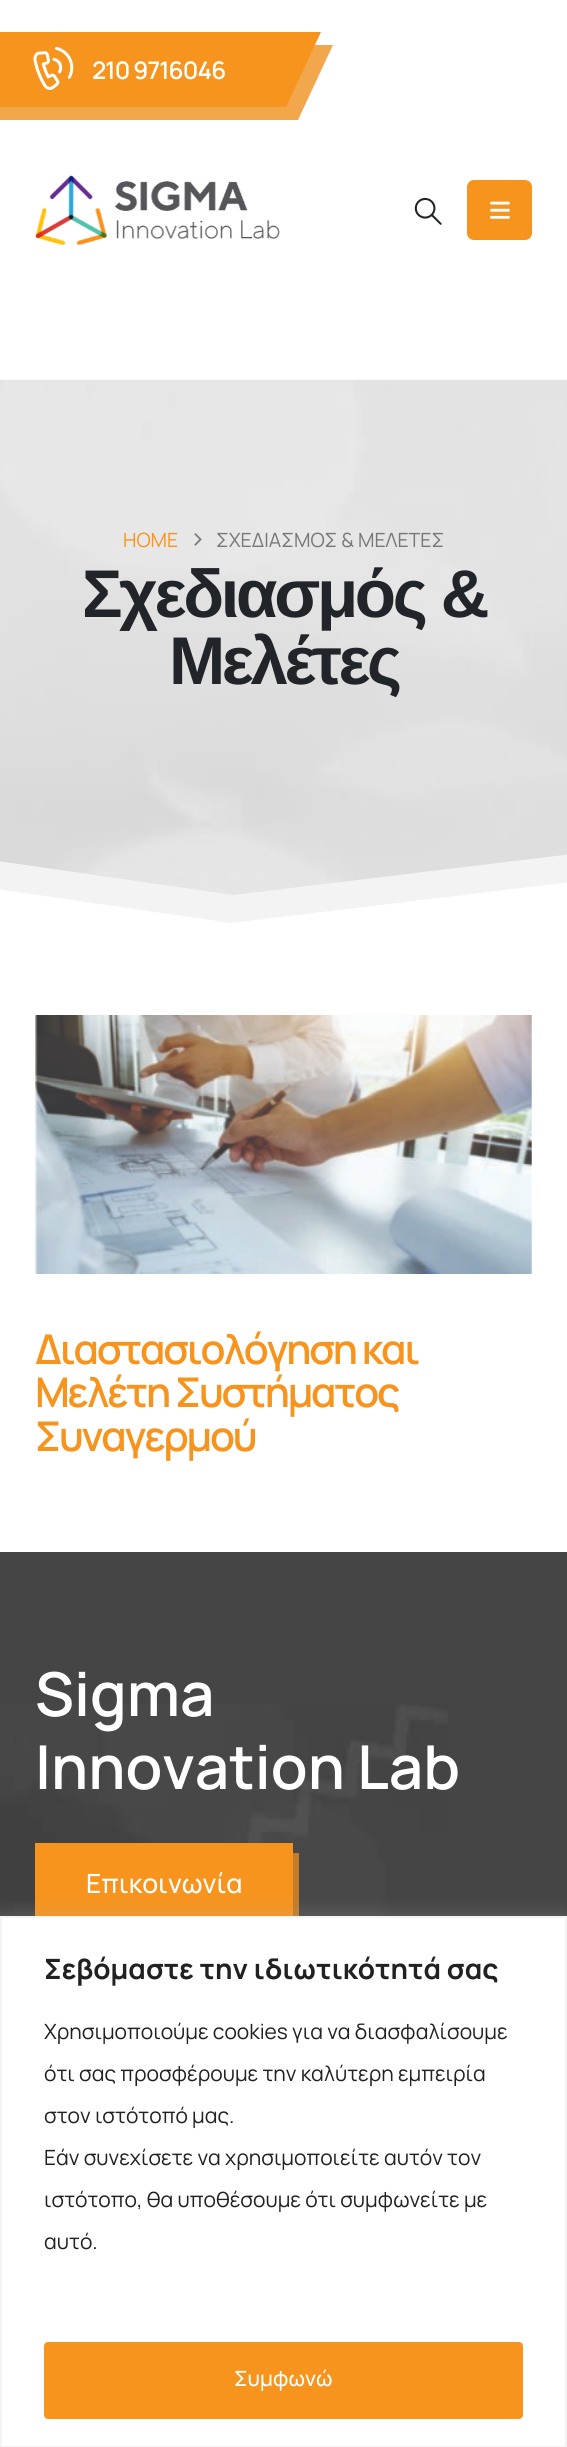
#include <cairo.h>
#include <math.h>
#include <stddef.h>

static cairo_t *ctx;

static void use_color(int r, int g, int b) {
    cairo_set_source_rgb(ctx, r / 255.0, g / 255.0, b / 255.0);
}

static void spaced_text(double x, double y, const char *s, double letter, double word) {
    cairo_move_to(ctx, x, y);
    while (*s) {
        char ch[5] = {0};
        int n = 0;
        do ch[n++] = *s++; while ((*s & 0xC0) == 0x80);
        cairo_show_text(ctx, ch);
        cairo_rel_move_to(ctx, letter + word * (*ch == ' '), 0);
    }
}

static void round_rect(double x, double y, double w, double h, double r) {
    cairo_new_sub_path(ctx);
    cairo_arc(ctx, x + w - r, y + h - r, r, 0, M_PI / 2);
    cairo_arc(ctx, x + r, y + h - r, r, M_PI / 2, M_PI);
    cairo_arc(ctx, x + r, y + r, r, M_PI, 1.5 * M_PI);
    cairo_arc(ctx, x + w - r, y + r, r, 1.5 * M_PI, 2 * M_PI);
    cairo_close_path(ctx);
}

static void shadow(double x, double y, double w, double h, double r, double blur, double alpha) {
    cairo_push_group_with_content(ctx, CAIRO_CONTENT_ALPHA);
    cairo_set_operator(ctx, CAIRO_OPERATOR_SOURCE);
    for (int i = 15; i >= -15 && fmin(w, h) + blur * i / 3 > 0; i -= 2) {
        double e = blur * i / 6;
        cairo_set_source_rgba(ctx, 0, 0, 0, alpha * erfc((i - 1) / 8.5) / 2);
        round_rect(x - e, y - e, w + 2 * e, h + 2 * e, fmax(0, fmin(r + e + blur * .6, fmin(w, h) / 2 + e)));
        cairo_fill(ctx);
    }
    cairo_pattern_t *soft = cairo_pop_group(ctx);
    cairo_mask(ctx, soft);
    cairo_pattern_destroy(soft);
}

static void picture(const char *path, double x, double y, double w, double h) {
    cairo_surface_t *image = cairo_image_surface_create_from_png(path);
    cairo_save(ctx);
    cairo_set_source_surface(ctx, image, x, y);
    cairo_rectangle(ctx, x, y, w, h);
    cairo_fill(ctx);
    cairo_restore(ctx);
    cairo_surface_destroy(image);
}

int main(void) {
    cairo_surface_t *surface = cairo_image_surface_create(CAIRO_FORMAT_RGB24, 567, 2447);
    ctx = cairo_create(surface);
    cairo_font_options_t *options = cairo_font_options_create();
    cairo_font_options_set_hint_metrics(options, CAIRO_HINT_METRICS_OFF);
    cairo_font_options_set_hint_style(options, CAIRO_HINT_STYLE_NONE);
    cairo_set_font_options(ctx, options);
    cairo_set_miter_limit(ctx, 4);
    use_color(255, 255, 255);
    cairo_paint(ctx);
    use_color(243, 167, 77);
    cairo_new_path(ctx);
    cairo_move_to(ctx, -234, 45);
    cairo_line_to(ctx, 333, 45);
    cairo_line_to(ctx, 298, 120);
    cairo_line_to(ctx, -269, 120);
    cairo_close_path(ctx);
    cairo_fill(ctx);
    use_color(247, 148, 30);
    cairo_new_path(ctx);
    cairo_move_to(ctx, -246, 32);
    cairo_line_to(ctx, 321, 32);
    cairo_line_to(ctx, 286, 107);
    cairo_line_to(ctx, -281, 107);
    cairo_close_path(ctx);
    cairo_fill(ctx);
    picture("img1.png", 33, 46, 41, 44);
    cairo_select_font_face(ctx, "Manrope SemiBold", CAIRO_FONT_SLANT_NORMAL, CAIRO_FONT_WEIGHT_NORMAL);
    cairo_set_font_size(ctx, 24.25);
    use_color(255, 255, 255);
    spaced_text(92, 79, "210 9716046", -0.9, 0);
    picture("img2.png", 35, 175, 245, 70);
    picture("img3.png", 414, 197, 28, 28);
    use_color(247, 148, 30);
    round_rect(467, 180, 65, 60, 7);
    cairo_fill(ctx);
    picture("img4.png", 490, 201, 20, 18);
    picture("img5.png", 0, 379, 567, 516);
    cairo_select_font_face(ctx, "Manrope", CAIRO_FONT_SLANT_NORMAL, CAIRO_FONT_WEIGHT_NORMAL);
    cairo_set_font_size(ctx, 19.6);
    cairo_move_to(ctx, 123, 547);
    cairo_show_text(ctx, "HOME");
    picture("img6.png", 194, 533, 8, 13);
    use_color(119, 119, 119);
    cairo_move_to(ctx, 216, 547);
    cairo_show_text(ctx, "ΣΧΕΔΙΑΣΜΟΣ & ΜΕΛΕΤΕΣ");
    cairo_select_font_face(ctx, "Liberation Sans", CAIRO_FONT_SLANT_NORMAL, CAIRO_FONT_WEIGHT_BOLD);
    cairo_set_font_size(ctx, 67.5);
    use_color(33, 37, 41);
    spaced_text(82, 617, "Σχεδιασμός &", -3.4, 1);
    spaced_text(169, 684, "Μελέτες", -3.4, 0);
    cairo_save(ctx);
    cairo_rectangle(ctx, 0, 742, 567, 214);
    cairo_clip(ctx);
    use_color(243, 243, 243);
    cairo_new_path(ctx);
    cairo_move_to(ctx, -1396, 799);
    cairo_line_to(ctx, -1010, 851);
    cairo_line_to(ctx, -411, 802);
    cairo_line_to(ctx, 233, 895);
    cairo_line_to(ctx, 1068, 794);
    cairo_line_to(ctx, 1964, 885);
    cairo_line_to(ctx, 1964, 958);
    cairo_line_to(ctx, -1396, 958);
    cairo_close_path(ctx);
    cairo_fill(ctx);
    use_color(255, 255, 255);
    cairo_new_path(ctx);
    cairo_move_to(ctx, -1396, 825);
    cairo_line_to(ctx, -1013, 879);
    cairo_line_to(ctx, -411, 830);
    cairo_line_to(ctx, 231, 923);
    cairo_line_to(ctx, 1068, 822);
    cairo_line_to(ctx, 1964, 913);
    cairo_line_to(ctx, 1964, 958);
    cairo_line_to(ctx, -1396, 958);
    cairo_close_path(ctx);
    cairo_fill(ctx);
    cairo_restore(ctx);
    picture("img7.png", 35, 1015, 497, 259);
    cairo_select_font_face(ctx, "Manrope SemiBold", CAIRO_FONT_SLANT_NORMAL, CAIRO_FONT_WEIGHT_NORMAL);
    cairo_set_font_size(ctx, 41);
    use_color(247, 148, 30);
    spaced_text(35, 1364, "Διαστασιολόγηση και", -2.25, 0);
    spaced_text(35, 1407, "Μελέτη Συστήματος", -2.25, 0);
    spaced_text(35, 1451, "Συναγερμού", -2.25, 0);
    use_color(69, 69, 69);
    cairo_rectangle(ctx, 0, 1552, 567, 364);
    cairo_fill(ctx);
    picture("img8.png", 0, 1703, 448, 213);
    cairo_set_font_size(ctx, 60.5);
    use_color(255, 255, 255);
    cairo_move_to(ctx, 35, 1716);
    cairo_show_text(ctx, "Sigma");
    cairo_move_to(ctx, 35, 1789);
    cairo_show_text(ctx, "Innovation Lab");
    use_color(247, 148, 30);
    cairo_rectangle(ctx, 35, 1843, 258, 73);
    cairo_fill(ctx);
    cairo_select_font_face(ctx, "Manrope Medium", CAIRO_FONT_SLANT_NORMAL, CAIRO_FONT_WEIGHT_NORMAL);
    cairo_set_font_size(ctx, 26.5);
    use_color(255, 255, 255);
    cairo_move_to(ctx, 86, 1893);
    cairo_show_text(ctx, "Επικοινωνία");
    cairo_set_source_rgba(ctx, 0.969, 0.58, 0.118, 0.7);
    cairo_rectangle(ctx, 293, 1853, 6, 63);
    cairo_fill(ctx);
    use_color(172, 171, 171);
    shadow(0, 1915, 567, 532, 0, 9, 0.3);
    use_color(255, 255, 255);
    cairo_rectangle(ctx, 1, 1917, 565, 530);
    cairo_fill_preserve(ctx);
    use_color(244, 244, 244);
    cairo_stroke(ctx);
    cairo_select_font_face(ctx, "Manrope", CAIRO_FONT_SLANT_NORMAL, CAIRO_FONT_WEIGHT_BOLD);
    cairo_set_font_size(ctx, 28);
    use_color(33, 33, 33);
    cairo_move_to(ctx, 44, 1979);
    cairo_show_text(ctx, "Σεβόμαστε την ιδιωτικότητά σας");
    cairo_select_font_face(ctx, "Manrope", CAIRO_FONT_SLANT_NORMAL, CAIRO_FONT_WEIGHT_NORMAL);
    cairo_set_font_size(ctx, 21);
    cairo_move_to(ctx, 44, 2039);
    cairo_show_text(ctx, "Χρησιμοποιούμε cookies για να διασφαλίσουμε");
    cairo_move_to(ctx, 44, 2081);
    cairo_show_text(ctx, "ότι σας προσφέρουμε την καλύτερη εμπειρία");
    cairo_move_to(ctx, 44, 2123);
    cairo_show_text(ctx, "στον ιστότοπό μας.");
    cairo_move_to(ctx, 44, 2165);
    cairo_show_text(ctx, "Εάν συνεχίσετε να χρησιμοποιείτε αυτόν τον");
    cairo_move_to(ctx, 44, 2207);
    cairo_show_text(ctx, "ιστότοπο, θα υποθέσουμε ότι συμφωνείτε με");
    cairo_move_to(ctx, 44, 2249);
    cairo_show_text(ctx, "αυτό.");
    use_color(247, 148, 30);
    round_rect(46, 2344, 475, 73, 2);
    cairo_fill_preserve(ctx);
    cairo_set_line_width(ctx, 4);
    cairo_stroke(ctx);
    cairo_select_font_face(ctx, "Manrope Medium", CAIRO_FONT_SLANT_NORMAL, CAIRO_FONT_WEIGHT_NORMAL);
    use_color(255, 255, 255);
    cairo_move_to(ctx, 234, 2386);
    cairo_show_text(ctx, "Συμφωνώ");
    cairo_surface_write_to_png(surface, "result.png");
    cairo_font_options_destroy(options);
    cairo_destroy(ctx);
    cairo_surface_destroy(surface);
    return 0;
}
